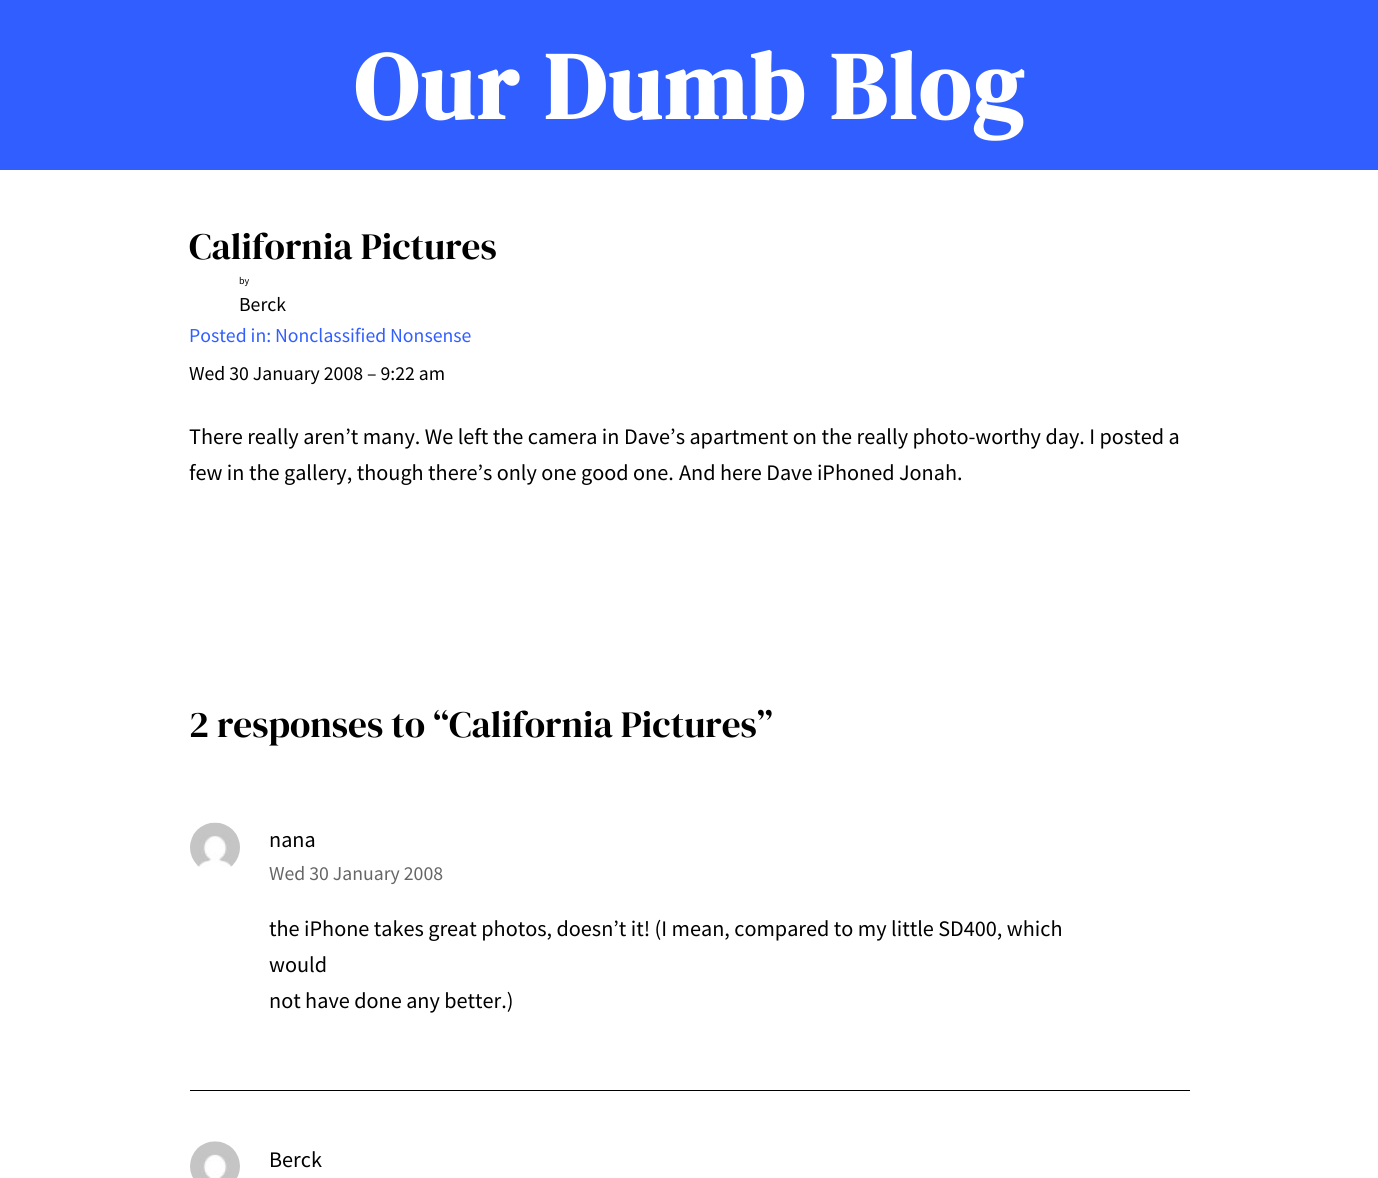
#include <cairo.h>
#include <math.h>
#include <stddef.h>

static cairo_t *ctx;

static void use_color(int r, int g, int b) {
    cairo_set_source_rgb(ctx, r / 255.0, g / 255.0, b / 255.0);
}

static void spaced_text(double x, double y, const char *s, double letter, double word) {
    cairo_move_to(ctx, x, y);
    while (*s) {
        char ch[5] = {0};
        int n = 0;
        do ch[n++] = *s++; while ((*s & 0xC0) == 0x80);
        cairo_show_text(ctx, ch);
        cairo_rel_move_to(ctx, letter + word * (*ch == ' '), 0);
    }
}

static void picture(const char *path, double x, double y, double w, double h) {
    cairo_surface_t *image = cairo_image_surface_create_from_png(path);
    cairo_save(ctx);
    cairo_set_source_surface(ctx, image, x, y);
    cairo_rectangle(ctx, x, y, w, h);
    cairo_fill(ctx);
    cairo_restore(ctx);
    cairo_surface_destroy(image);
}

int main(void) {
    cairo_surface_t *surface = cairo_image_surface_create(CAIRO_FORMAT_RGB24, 1378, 1178);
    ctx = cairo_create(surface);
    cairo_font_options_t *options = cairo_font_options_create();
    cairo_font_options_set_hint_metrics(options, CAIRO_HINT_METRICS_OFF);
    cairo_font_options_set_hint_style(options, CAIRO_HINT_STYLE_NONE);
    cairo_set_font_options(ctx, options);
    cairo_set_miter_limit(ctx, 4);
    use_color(255, 255, 255);
    cairo_paint(ctx);
    use_color(49, 94, 255);
    cairo_rectangle(ctx, 0, 0, 1378, 170);
    cairo_fill(ctx);
    cairo_select_font_face(ctx, "DM Serif Display", CAIRO_FONT_SLANT_NORMAL, CAIRO_FONT_WEIGHT_BOLD);
    cairo_set_font_size(ctx, 94.75);
    use_color(255, 255, 255);
    spaced_text(354, 119, "Our Dumb Blog", 2.5, 0);
    cairo_select_font_face(ctx, "DM Serif Display", CAIRO_FONT_SLANT_NORMAL, CAIRO_FONT_WEIGHT_NORMAL);
    cairo_set_font_size(ctx, 37.25);
    use_color(0, 0, 0);
    cairo_move_to(ctx, 189, 259);
    cairo_show_text(ctx, "California Pictures");
    cairo_select_font_face(ctx, "Source Sans Pro", CAIRO_FONT_SLANT_NORMAL, CAIRO_FONT_WEIGHT_NORMAL);
    cairo_set_font_size(ctx, 10);
    cairo_move_to(ctx, 239, 284);
    cairo_show_text(ctx, "by");
    cairo_set_font_size(ctx, 19.75);
    cairo_move_to(ctx, 239, 311);
    cairo_show_text(ctx, "Berck");
    use_color(49, 94, 255);
    cairo_move_to(ctx, 189, 342);
    cairo_show_text(ctx, "Posted in: Nonclassified Nonsense");
    use_color(0, 0, 0);
    cairo_move_to(ctx, 189, 380);
    cairo_show_text(ctx, "Wed 30 January 2008 – 9:22 am");
    cairo_set_font_size(ctx, 22.2);
    cairo_move_to(ctx, 189, 444);
    cairo_show_text(ctx, "There really aren’t many. We left the camera in Dave’s apartment on the really photo-worthy day. I posted a");
    cairo_move_to(ctx, 189, 480);
    cairo_show_text(ctx, "few in the gallery, though there’s only one good one.");
    cairo_move_to(ctx, 679, 480);
    cairo_show_text(ctx, "And here Dave iPhoned Jonah.");
    cairo_select_font_face(ctx, "DM Serif Display", CAIRO_FONT_SLANT_NORMAL, CAIRO_FONT_WEIGHT_NORMAL);
    cairo_set_font_size(ctx, 37.25);
    cairo_move_to(ctx, 189, 737);
    cairo_show_text(ctx, "2 responses to “California Pictures”");
    cairo_rectangle(ctx, 190, 1090, 1000, 1);
    cairo_fill(ctx);
    picture("img1.png", 190, 822, 50, 45);
    cairo_select_font_face(ctx, "Source Sans Pro", CAIRO_FONT_SLANT_NORMAL, CAIRO_FONT_WEIGHT_NORMAL);
    cairo_set_font_size(ctx, 22.2);
    cairo_move_to(ctx, 269, 847);
    cairo_show_text(ctx, "nana");
    cairo_set_font_size(ctx, 19.75);
    use_color(102, 102, 102);
    cairo_move_to(ctx, 269, 880);
    cairo_show_text(ctx, "Wed 30 January 2008");
    cairo_set_font_size(ctx, 22.2);
    use_color(0, 0, 0);
    cairo_move_to(ctx, 269, 936);
    cairo_show_text(ctx, "the iPhone takes great photos, doesn’t it! (I mean, compared to my little SD400, which");
    cairo_move_to(ctx, 269, 972);
    cairo_show_text(ctx, "would");
    cairo_move_to(ctx, 269, 1008);
    cairo_show_text(ctx, "not have done any better.)");
    picture("img2.png", 190, 1141, 50, 37);
    cairo_move_to(ctx, 269, 1167);
    cairo_show_text(ctx, "Berck");
    cairo_surface_write_to_png(surface, "result.png");
    cairo_font_options_destroy(options);
    cairo_destroy(ctx);
    cairo_surface_destroy(surface);
    return 0;
}
